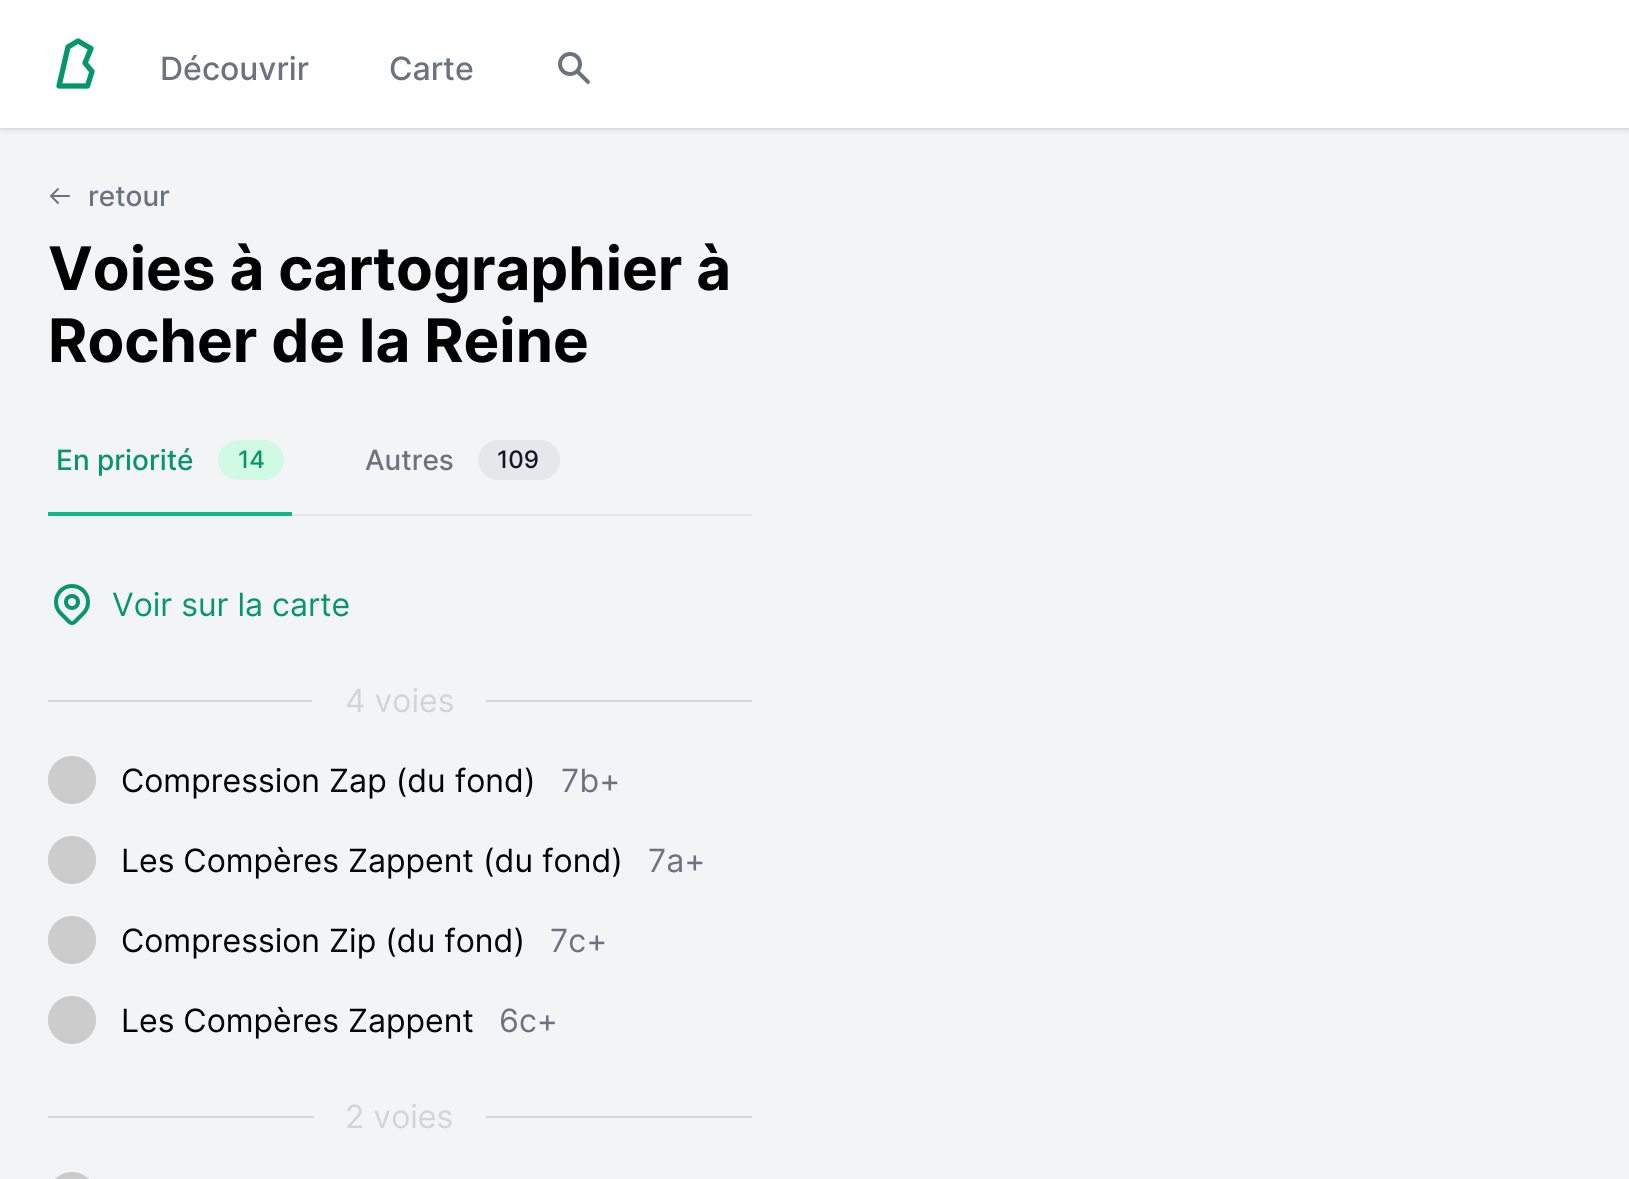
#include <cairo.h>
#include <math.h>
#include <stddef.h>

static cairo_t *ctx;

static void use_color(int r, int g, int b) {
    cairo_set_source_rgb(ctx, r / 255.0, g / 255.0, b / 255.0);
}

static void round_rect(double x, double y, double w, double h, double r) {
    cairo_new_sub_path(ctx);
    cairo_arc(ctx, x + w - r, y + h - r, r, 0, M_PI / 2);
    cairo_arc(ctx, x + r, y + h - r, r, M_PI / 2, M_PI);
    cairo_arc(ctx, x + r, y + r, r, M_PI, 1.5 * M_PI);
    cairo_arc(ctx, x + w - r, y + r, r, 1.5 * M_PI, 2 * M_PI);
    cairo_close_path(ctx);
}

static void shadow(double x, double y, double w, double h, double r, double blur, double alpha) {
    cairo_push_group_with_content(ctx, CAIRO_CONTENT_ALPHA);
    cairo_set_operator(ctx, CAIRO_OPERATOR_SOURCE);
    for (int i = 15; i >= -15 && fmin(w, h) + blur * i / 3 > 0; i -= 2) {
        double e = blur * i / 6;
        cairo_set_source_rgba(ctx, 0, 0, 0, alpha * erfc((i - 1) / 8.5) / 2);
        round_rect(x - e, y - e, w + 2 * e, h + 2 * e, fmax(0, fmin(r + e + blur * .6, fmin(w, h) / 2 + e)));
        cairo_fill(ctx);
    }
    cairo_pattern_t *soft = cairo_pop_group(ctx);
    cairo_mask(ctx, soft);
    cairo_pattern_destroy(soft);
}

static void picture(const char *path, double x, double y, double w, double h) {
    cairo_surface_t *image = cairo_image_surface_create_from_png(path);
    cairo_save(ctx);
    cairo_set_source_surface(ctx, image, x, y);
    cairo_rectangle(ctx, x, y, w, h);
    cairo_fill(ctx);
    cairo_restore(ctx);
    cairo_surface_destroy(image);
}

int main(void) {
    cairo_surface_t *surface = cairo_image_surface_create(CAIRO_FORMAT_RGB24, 1629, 1179);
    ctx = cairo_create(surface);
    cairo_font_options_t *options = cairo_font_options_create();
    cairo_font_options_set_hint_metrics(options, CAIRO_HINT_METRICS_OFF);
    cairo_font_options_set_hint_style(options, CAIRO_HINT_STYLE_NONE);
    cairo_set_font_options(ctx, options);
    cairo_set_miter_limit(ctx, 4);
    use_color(243, 244, 246);
    cairo_paint(ctx);
    use_color(0, 0, 0);
    shadow(2, 4, 1626, 124, 0, 2, 0.1);
    shadow(0, 2, 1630, 128, 0, 3, 0.1);
    use_color(255, 255, 255);
    cairo_rectangle(ctx, 0, 0, 1629, 128);
    cairo_fill(ctx);
    cairo_new_path(ctx);
    cairo_move_to(ctx, 59, 86);
    cairo_line_to(ctx, 68, 47);
    cairo_line_to(ctx, 78, 41);
    cairo_line_to(ctx, 91, 48.5);
    cairo_line_to(ctx, 85, 63);
    cairo_line_to(ctx, 92, 71.5);
    cairo_line_to(ctx, 87.5, 86);
    cairo_close_path(ctx);
    use_color(5, 150, 105);
    cairo_set_line_width(ctx, 5.3);
    cairo_set_line_join(ctx, CAIRO_LINE_JOIN_ROUND);
    cairo_stroke(ctx);
    cairo_select_font_face(ctx, "Inter Medium", CAIRO_FONT_SLANT_NORMAL, CAIRO_FONT_WEIGHT_NORMAL);
    cairo_set_font_size(ctx, 32);
    use_color(107, 114, 128);
    cairo_move_to(ctx, 160, 80);
    cairo_show_text(ctx, "Découvrir");
    cairo_move_to(ctx, 389, 80);
    cairo_show_text(ctx, "Carte");
    picture("img1.png", 558, 52, 32, 32);
    cairo_new_path(ctx);
    cairo_move_to(ctx, 58, 203);
    cairo_line_to(ctx, 51, 196);
    cairo_move_to(ctx, 51, 196);
    cairo_line_to(ctx, 58, 189);
    cairo_move_to(ctx, 51, 196);
    cairo_line_to(ctx, 69, 196);
    cairo_set_line_width(ctx, 2);
    cairo_set_line_cap(ctx, CAIRO_LINE_CAP_ROUND);
    cairo_stroke(ctx);
    cairo_set_font_size(ctx, 28);
    cairo_move_to(ctx, 88, 206);
    cairo_show_text(ctx, "retour");
    cairo_select_font_face(ctx, "Inter", CAIRO_FONT_SLANT_NORMAL, CAIRO_FONT_WEIGHT_BOLD);
    cairo_set_font_size(ctx, 60);
    use_color(0, 0, 0);
    cairo_move_to(ctx, 48, 290);
    cairo_show_text(ctx, "Voies à cartographier à");
    cairo_move_to(ctx, 48, 362);
    cairo_show_text(ctx, "Rocher de la Reine");
    use_color(229, 231, 235);
    cairo_rectangle(ctx, 292, 514, 460, 2);
    cairo_fill(ctx);
    use_color(16, 185, 129);
    cairo_rectangle(ctx, 48, 512, 244, 4);
    cairo_fill(ctx);
    cairo_select_font_face(ctx, "Inter Medium", CAIRO_FONT_SLANT_NORMAL, CAIRO_FONT_WEIGHT_NORMAL);
    cairo_set_font_size(ctx, 28);
    use_color(5, 150, 105);
    cairo_move_to(ctx, 56, 470);
    cairo_show_text(ctx, "En priorité");
    use_color(209, 250, 229);
    round_rect(218, 440, 66, 40, 20);
    cairo_fill(ctx);
    cairo_set_font_size(ctx, 24);
    use_color(5, 150, 105);
    cairo_move_to(ctx, 238, 468);
    cairo_show_text(ctx, "14");
    cairo_set_font_size(ctx, 28);
    use_color(107, 114, 128);
    cairo_move_to(ctx, 365, 470);
    cairo_show_text(ctx, "Autres");
    use_color(229, 231, 235);
    round_rect(478, 440, 82, 40, 20);
    cairo_fill(ctx);
    cairo_set_font_size(ctx, 24);
    use_color(17, 24, 39);
    cairo_move_to(ctx, 497, 468);
    cairo_show_text(ctx, "109");
    picture("img2.png", 54, 584, 36, 41);
    cairo_select_font_face(ctx, "Inter", CAIRO_FONT_SLANT_NORMAL, CAIRO_FONT_WEIGHT_NORMAL);
    cairo_set_font_size(ctx, 32);
    use_color(5, 150, 105);
    cairo_move_to(ctx, 112, 616);
    cairo_show_text(ctx, "Voir sur la carte");
    use_color(209, 213, 219);
    cairo_rectangle(ctx, 48, 700, 264, 2);
    cairo_fill(ctx);
    cairo_move_to(ctx, 345, 712);
    cairo_show_text(ctx, "4 voies");
    cairo_rectangle(ctx, 486, 700, 266, 2);
    cairo_fill(ctx);
    use_color(204, 204, 204);
    cairo_arc(ctx, 72, 780, 24, 0, 2 * M_PI);
    cairo_fill(ctx);
    use_color(0, 0, 0);
    cairo_move_to(ctx, 121, 792);
    cairo_show_text(ctx, "Compression Zap (du fond)");
    use_color(107, 114, 128);
    cairo_move_to(ctx, 561, 792);
    cairo_show_text(ctx, "7b+");
    use_color(204, 204, 204);
    cairo_new_path(ctx);
    cairo_arc(ctx, 72, 860, 24, 0, 2 * M_PI);
    cairo_fill(ctx);
    use_color(0, 0, 0);
    cairo_move_to(ctx, 121, 872);
    cairo_show_text(ctx, "Les Compères Zappent (du fond)");
    use_color(107, 114, 128);
    cairo_move_to(ctx, 648, 872);
    cairo_show_text(ctx, "7a+");
    use_color(204, 204, 204);
    cairo_new_path(ctx);
    cairo_arc(ctx, 72, 940, 24, 0, 2 * M_PI);
    cairo_fill(ctx);
    use_color(0, 0, 0);
    cairo_move_to(ctx, 121, 952);
    cairo_show_text(ctx, "Compression Zip (du fond)");
    use_color(107, 114, 128);
    cairo_move_to(ctx, 550, 952);
    cairo_show_text(ctx, "7c+");
    use_color(204, 204, 204);
    cairo_new_path(ctx);
    cairo_arc(ctx, 72, 1020, 24, 0, 2 * M_PI);
    cairo_fill(ctx);
    use_color(0, 0, 0);
    cairo_move_to(ctx, 121, 1032);
    cairo_show_text(ctx, "Les Compères Zappent");
    use_color(107, 114, 128);
    cairo_move_to(ctx, 499, 1032);
    cairo_show_text(ctx, "6c+");
    use_color(209, 213, 219);
    cairo_rectangle(ctx, 48, 1116, 266, 2);
    cairo_fill(ctx);
    cairo_move_to(ctx, 345, 1128);
    cairo_show_text(ctx, "2 voies");
    cairo_rectangle(ctx, 486, 1116, 266, 2);
    cairo_fill(ctx);
    use_color(204, 204, 204);
    round_rect(48, 1172, 48, 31, 24);
    cairo_fill(ctx);
    cairo_surface_write_to_png(surface, "result.png");
    cairo_font_options_destroy(options);
    cairo_destroy(ctx);
    cairo_surface_destroy(surface);
    return 0;
}
